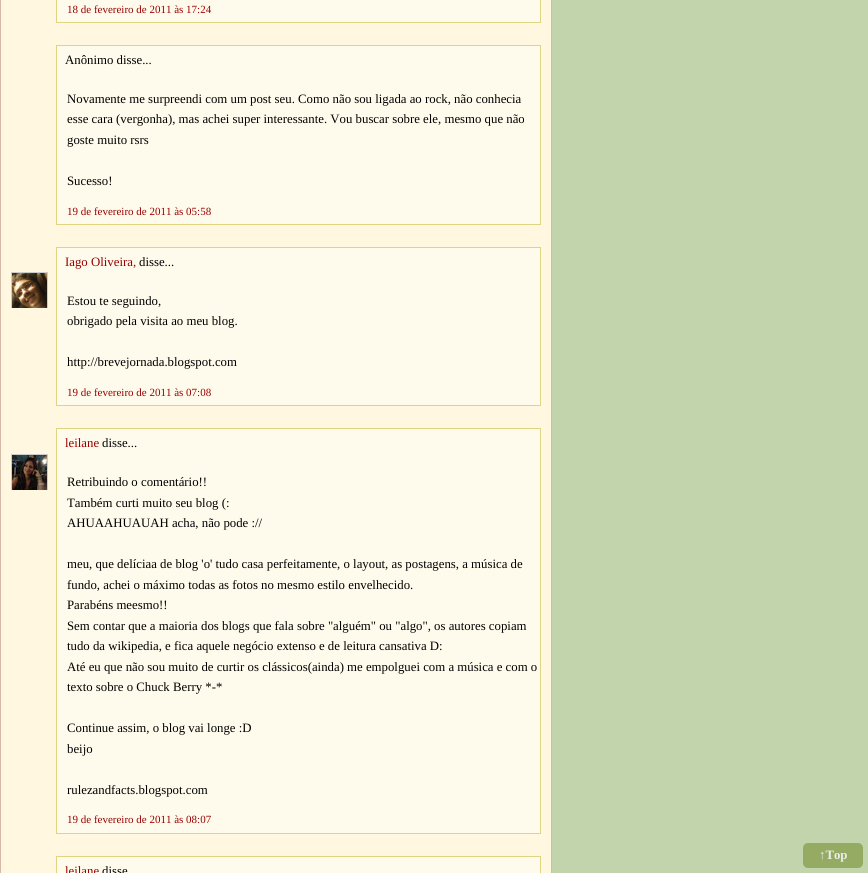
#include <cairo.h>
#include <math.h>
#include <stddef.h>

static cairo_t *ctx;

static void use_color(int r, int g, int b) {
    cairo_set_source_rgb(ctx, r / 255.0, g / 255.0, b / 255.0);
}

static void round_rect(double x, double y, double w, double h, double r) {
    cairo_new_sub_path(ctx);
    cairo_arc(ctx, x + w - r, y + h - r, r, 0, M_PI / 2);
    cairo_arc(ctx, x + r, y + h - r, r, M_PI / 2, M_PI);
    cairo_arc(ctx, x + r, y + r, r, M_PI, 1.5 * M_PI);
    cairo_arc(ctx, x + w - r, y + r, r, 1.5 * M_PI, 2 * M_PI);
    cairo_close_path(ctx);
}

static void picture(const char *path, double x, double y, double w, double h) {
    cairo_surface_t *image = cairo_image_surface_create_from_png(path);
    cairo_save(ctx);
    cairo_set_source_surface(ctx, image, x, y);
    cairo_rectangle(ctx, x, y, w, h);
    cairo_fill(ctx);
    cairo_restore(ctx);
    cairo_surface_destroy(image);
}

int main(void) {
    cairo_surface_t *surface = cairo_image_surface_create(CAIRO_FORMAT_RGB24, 868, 873);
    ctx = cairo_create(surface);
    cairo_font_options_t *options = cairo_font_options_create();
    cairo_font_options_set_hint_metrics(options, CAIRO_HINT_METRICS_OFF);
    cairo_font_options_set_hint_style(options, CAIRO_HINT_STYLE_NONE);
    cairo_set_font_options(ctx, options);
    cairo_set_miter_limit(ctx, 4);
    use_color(194, 212, 171);
    cairo_paint(ctx);
    use_color(255, 247, 223);
    cairo_rectangle(ctx, 0.5, -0.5, 551, 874);
    cairo_fill_preserve(ctx);
    use_color(212, 185, 166);
    cairo_set_line_width(ctx, 1);
    cairo_stroke(ctx);
    use_color(255, 251, 236);
    cairo_rectangle(ctx, 56, 0, 485, 2);
    cairo_fill(ctx);
    use_color(223, 212, 130);
    cairo_rectangle(ctx, 540, 0, 1, 23);
    cairo_fill(ctx);
    cairo_rectangle(ctx, 56, 0, 1, 4);
    cairo_fill(ctx);
    use_color(255, 251, 236);
    cairo_rectangle(ctx, 57, 2, 483, 20);
    cairo_fill(ctx);
    use_color(223, 212, 130);
    cairo_rectangle(ctx, 56, 22, 485, 1);
    cairo_fill(ctx);
    cairo_rectangle(ctx, 56, 2, 1, 21);
    cairo_fill(ctx);
    cairo_select_font_face(ctx, "Liberation Serif", CAIRO_FONT_SLANT_NORMAL, CAIRO_FONT_WEIGHT_NORMAL);
    cairo_set_font_size(ctx, 11);
    use_color(153, 0, 0);
    cairo_move_to(ctx, 67, 13);
    cairo_show_text(ctx, "18 de fevereiro de 2011 às 17:24");
    use_color(255, 251, 236);
    cairo_rectangle(ctx, 57, 46, 483, 178);
    cairo_fill(ctx);
    use_color(223, 212, 130);
    cairo_rectangle(ctx, 56, 45, 485, 1);
    cairo_fill(ctx);
    cairo_rectangle(ctx, 540, 45, 1, 180);
    cairo_fill(ctx);
    cairo_rectangle(ctx, 56, 45, 1, 161);
    cairo_fill(ctx);
    cairo_set_font_size(ctx, 12.8);
    use_color(0, 0, 0);
    cairo_move_to(ctx, 65, 64);
    cairo_show_text(ctx, "Anônimo disse...");
    cairo_move_to(ctx, 67, 103);
    cairo_show_text(ctx, "Novamente me surpreendi com um post seu. Como não sou ligada ao rock, não conhecia");
    cairo_move_to(ctx, 67, 123);
    cairo_show_text(ctx, "esse cara (vergonha), mas achei super interessante. Vou buscar sobre ele, mesmo que não");
    cairo_move_to(ctx, 67, 144);
    cairo_show_text(ctx, "goste muito rsrs");
    cairo_move_to(ctx, 67, 185);
    cairo_show_text(ctx, "Sucesso!");
    use_color(223, 212, 130);
    cairo_rectangle(ctx, 56, 224, 485, 1);
    cairo_fill(ctx);
    cairo_rectangle(ctx, 56, 204, 1, 21);
    cairo_fill(ctx);
    cairo_set_font_size(ctx, 11);
    use_color(153, 0, 0);
    cairo_move_to(ctx, 67, 215);
    cairo_show_text(ctx, "19 de fevereiro de 2011 às 05:58");
    use_color(255, 251, 236);
    cairo_rectangle(ctx, 57, 248, 483, 157);
    cairo_fill(ctx);
    use_color(223, 212, 130);
    cairo_rectangle(ctx, 56, 247, 485, 1);
    cairo_fill(ctx);
    cairo_rectangle(ctx, 540, 247, 1, 159);
    cairo_fill(ctx);
    cairo_rectangle(ctx, 56, 247, 1, 141);
    cairo_fill(ctx);
    cairo_set_font_size(ctx, 12.8);
    use_color(153, 0, 0);
    cairo_move_to(ctx, 65, 266);
    cairo_show_text(ctx, "Iago Oliveira,");
    use_color(0, 0, 0);
    cairo_move_to(ctx, 139, 266);
    cairo_show_text(ctx, "disse...");
    cairo_save(ctx);
    cairo_rectangle(ctx, 11, 272, 37, 36);
    cairo_clip(ctx);
    cairo_rectangle(ctx, 11.5, 272.5, 36, 36);
    use_color(204, 204, 204);
    cairo_stroke(ctx);
    cairo_restore(ctx);
    picture("img1.png", 12, 273, 35, 35);
    cairo_move_to(ctx, 67, 305);
    cairo_show_text(ctx, "Estou te seguindo,");
    cairo_move_to(ctx, 67, 325);
    cairo_show_text(ctx, "obrigado pela visita ao meu blog.");
    cairo_move_to(ctx, 67, 366);
    cairo_show_text(ctx, "http://brevejornada.blogspot.com");
    use_color(223, 212, 130);
    cairo_rectangle(ctx, 56, 405, 485, 1);
    cairo_fill(ctx);
    cairo_rectangle(ctx, 56, 385, 1, 21);
    cairo_fill(ctx);
    cairo_set_font_size(ctx, 11);
    use_color(153, 0, 0);
    cairo_move_to(ctx, 67, 396);
    cairo_show_text(ctx, "19 de fevereiro de 2011 às 07:08");
    use_color(255, 251, 236);
    cairo_rectangle(ctx, 57, 429, 483, 404);
    cairo_fill(ctx);
    use_color(223, 212, 130);
    cairo_rectangle(ctx, 56, 428, 485, 1);
    cairo_fill(ctx);
    cairo_rectangle(ctx, 540, 428, 1, 406);
    cairo_fill(ctx);
    cairo_rectangle(ctx, 56, 428, 1, 387);
    cairo_fill(ctx);
    cairo_set_font_size(ctx, 12.8);
    use_color(153, 0, 0);
    cairo_move_to(ctx, 65, 447);
    cairo_show_text(ctx, "leilane");
    use_color(0, 0, 0);
    cairo_move_to(ctx, 102, 447);
    cairo_show_text(ctx, "disse...");
    cairo_save(ctx);
    cairo_rectangle(ctx, 11, 454, 37, 36);
    cairo_clip(ctx);
    cairo_rectangle(ctx, 11.5, 454.5, 36, 36);
    use_color(204, 204, 204);
    cairo_stroke(ctx);
    cairo_restore(ctx);
    picture("img2.png", 12, 455, 35, 35);
    cairo_move_to(ctx, 67, 486);
    cairo_show_text(ctx, "Retribuindo o comentário!!");
    cairo_move_to(ctx, 67, 507);
    cairo_show_text(ctx, "Também curti muito seu blog (:");
    cairo_move_to(ctx, 67, 527);
    cairo_show_text(ctx, "AHUAAHUAUAH acha, não pode ://");
    cairo_move_to(ctx, 67, 568);
    cairo_show_text(ctx, "meu, que delíciaa de blog 'o' tudo casa perfeitamente, o layout, as postagens, a música de");
    cairo_move_to(ctx, 67, 589);
    cairo_show_text(ctx, "fundo, achei o máximo todas as fotos no mesmo estilo envelhecido.");
    cairo_move_to(ctx, 67, 609);
    cairo_show_text(ctx, "Parabéns meesmo!!");
    cairo_move_to(ctx, 67, 630);
    cairo_show_text(ctx, "Sem contar que a maioria dos blogs que fala sobre \"alguém\" ou \"algo\", os autores copiam");
    cairo_move_to(ctx, 67, 650);
    cairo_show_text(ctx, "tudo da wikipedia, e fica aquele negócio extenso e de leitura cansativa D:");
    cairo_move_to(ctx, 67, 671);
    cairo_show_text(ctx, "Até eu que não sou muito de curtir os clássicos(ainda) me empolguei com a música e com o");
    cairo_move_to(ctx, 67, 691);
    cairo_show_text(ctx, "texto sobre o Chuck Berry *-*");
    cairo_move_to(ctx, 67, 732);
    cairo_show_text(ctx, "Continue assim, o blog vai longe :D");
    cairo_move_to(ctx, 67, 753);
    cairo_show_text(ctx, "beijo");
    cairo_move_to(ctx, 67, 794);
    cairo_show_text(ctx, "rulezandfacts.blogspot.com");
    use_color(223, 212, 130);
    cairo_rectangle(ctx, 56, 833, 485, 1);
    cairo_fill(ctx);
    cairo_rectangle(ctx, 56, 812, 1, 22);
    cairo_fill(ctx);
    cairo_set_font_size(ctx, 11);
    use_color(153, 0, 0);
    cairo_move_to(ctx, 67, 823);
    cairo_show_text(ctx, "19 de fevereiro de 2011 às 08:07");
    use_color(255, 251, 236);
    cairo_rectangle(ctx, 57, 857, 483, 16);
    cairo_fill(ctx);
    use_color(223, 212, 130);
    cairo_rectangle(ctx, 56, 856, 485, 1);
    cairo_fill(ctx);
    cairo_rectangle(ctx, 540, 856, 1, 17);
    cairo_fill(ctx);
    cairo_rectangle(ctx, 56, 856, 1, 17);
    cairo_fill(ctx);
    cairo_set_font_size(ctx, 12.8);
    use_color(153, 0, 0);
    cairo_move_to(ctx, 65, 875);
    cairo_show_text(ctx, "leilane");
    use_color(0, 0, 0);
    cairo_move_to(ctx, 102, 875);
    cairo_show_text(ctx, "disse");
    use_color(149, 171, 99);
    round_rect(803, 843, 60, 25, 5);
    cairo_fill(ctx);
    cairo_select_font_face(ctx, "Liberation Serif", CAIRO_FONT_SLANT_NORMAL, CAIRO_FONT_WEIGHT_BOLD);
    use_color(237, 237, 236);
    cairo_move_to(ctx, 819, 859);
    cairo_show_text(ctx, "↑Top");
    cairo_surface_write_to_png(surface, "result.png");
    cairo_font_options_destroy(options);
    cairo_destroy(ctx);
    cairo_surface_destroy(surface);
    return 0;
}
